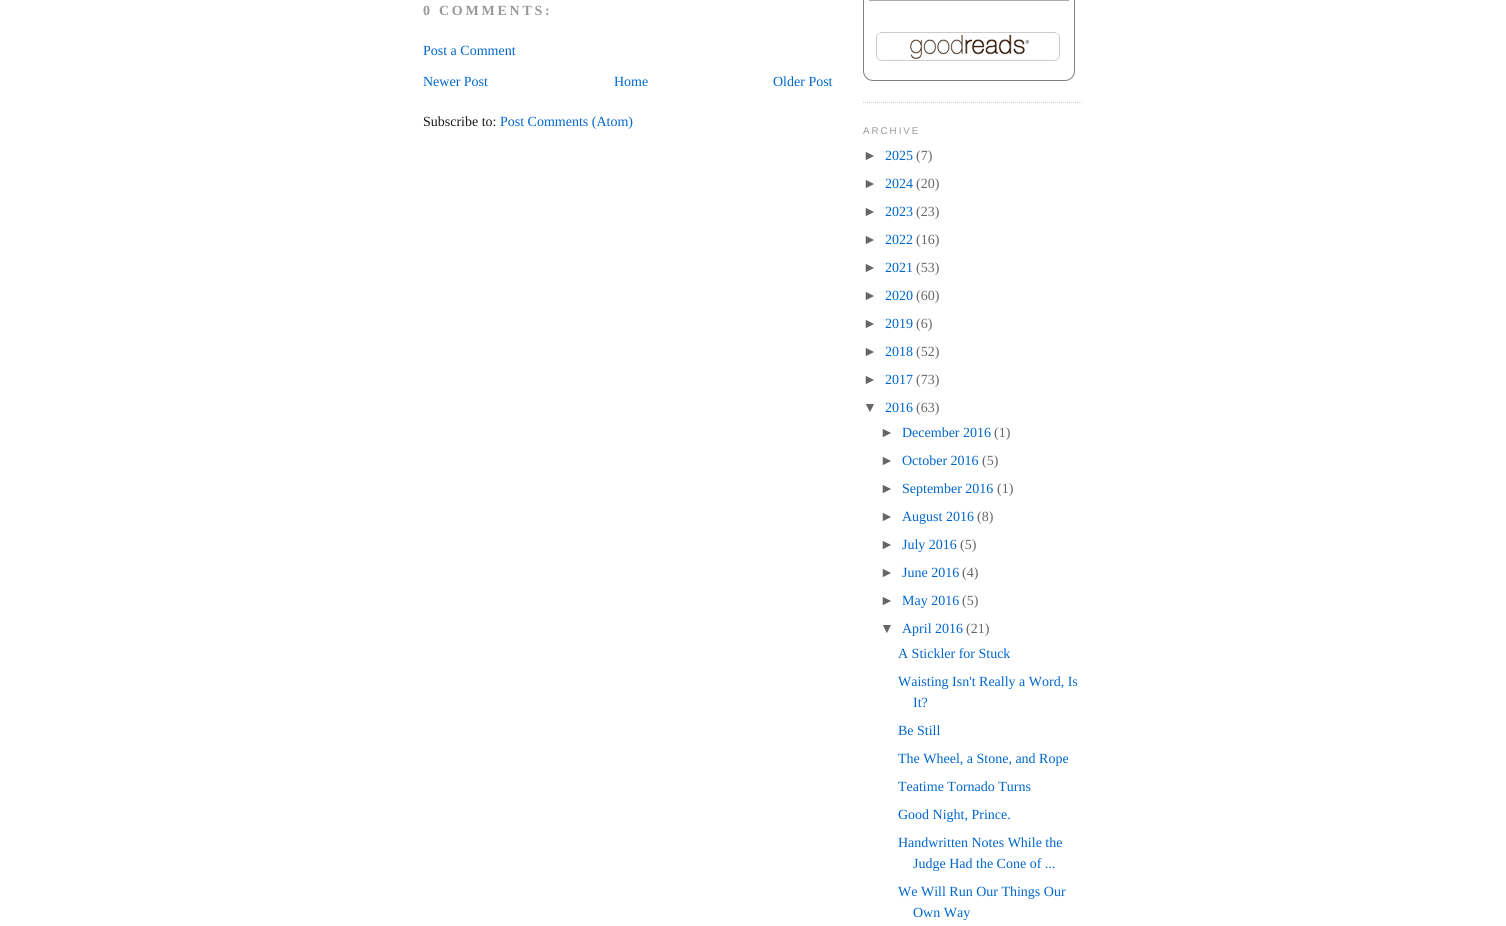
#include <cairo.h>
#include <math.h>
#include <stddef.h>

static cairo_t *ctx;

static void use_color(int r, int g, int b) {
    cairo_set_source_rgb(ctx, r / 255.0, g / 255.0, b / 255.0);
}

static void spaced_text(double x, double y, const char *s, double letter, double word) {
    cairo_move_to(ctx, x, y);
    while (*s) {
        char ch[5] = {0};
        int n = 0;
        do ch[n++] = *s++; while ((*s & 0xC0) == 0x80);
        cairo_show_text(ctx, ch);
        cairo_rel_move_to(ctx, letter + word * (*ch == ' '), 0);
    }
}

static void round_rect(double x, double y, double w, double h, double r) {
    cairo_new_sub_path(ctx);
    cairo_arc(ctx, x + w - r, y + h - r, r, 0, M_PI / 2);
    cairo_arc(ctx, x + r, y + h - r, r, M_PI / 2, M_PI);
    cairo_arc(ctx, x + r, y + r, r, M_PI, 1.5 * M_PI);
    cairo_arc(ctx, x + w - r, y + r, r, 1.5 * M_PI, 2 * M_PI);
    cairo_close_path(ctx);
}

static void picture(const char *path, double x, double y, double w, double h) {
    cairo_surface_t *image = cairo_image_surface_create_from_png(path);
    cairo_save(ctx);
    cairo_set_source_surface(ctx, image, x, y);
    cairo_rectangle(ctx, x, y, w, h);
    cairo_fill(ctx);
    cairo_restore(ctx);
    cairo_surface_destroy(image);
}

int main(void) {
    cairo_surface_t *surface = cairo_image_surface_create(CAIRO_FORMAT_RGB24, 1506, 926);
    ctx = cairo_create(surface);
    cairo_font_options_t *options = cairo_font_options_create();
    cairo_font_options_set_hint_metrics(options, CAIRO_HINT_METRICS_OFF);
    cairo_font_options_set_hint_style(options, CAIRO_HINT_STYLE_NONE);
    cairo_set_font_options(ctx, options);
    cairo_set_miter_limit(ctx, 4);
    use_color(255, 255, 255);
    cairo_paint(ctx);
    cairo_select_font_face(ctx, "Liberation Serif", CAIRO_FONT_SLANT_NORMAL, CAIRO_FONT_WEIGHT_BOLD);
    cairo_set_font_size(ctx, 14);
    use_color(153, 153, 153);
    spaced_text(423, 15, "0 COMMENTS:", 2.75, 0);
    cairo_select_font_face(ctx, "Liberation Serif", CAIRO_FONT_SLANT_NORMAL, CAIRO_FONT_WEIGHT_NORMAL);
    use_color(0, 102, 204);
    cairo_move_to(ctx, 423, 55);
    cairo_show_text(ctx, "Post a Comment");
    cairo_move_to(ctx, 423, 86);
    cairo_show_text(ctx, "Newer Post");
    cairo_move_to(ctx, 614, 86);
    cairo_show_text(ctx, "Home");
    cairo_move_to(ctx, 773, 86);
    cairo_show_text(ctx, "Older Post");
    use_color(25, 25, 25);
    cairo_move_to(ctx, 423, 126);
    cairo_show_text(ctx, "Subscribe to:");
    use_color(0, 102, 204);
    cairo_move_to(ctx, 500, 126);
    cairo_show_text(ctx, "Post Comments (Atom)");
    cairo_new_path(ctx);
    cairo_move_to(ctx, 863, 102.5);
    cairo_line_to(ctx, 1083, 102.5);
    use_color(204, 204, 204);
    cairo_set_line_width(ctx, 1);
    cairo_set_dash(ctx, (double[]){1, 1}, 2, 0);
    cairo_stroke(ctx);
    round_rect(863.5, -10.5, 211, 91, 9.5);
    use_color(128, 128, 128);
    cairo_set_dash(ctx, NULL, 0, 0);
    cairo_stroke(ctx);
    use_color(170, 170, 170);
    cairo_rectangle(ctx, 869, 0, 200, 1);
    cairo_fill(ctx);
    picture("img1.png", 876, 32, 184, 29);
    cairo_select_font_face(ctx, "Liberation Sans", CAIRO_FONT_SLANT_NORMAL, CAIRO_FONT_WEIGHT_NORMAL);
    cairo_set_font_size(ctx, 9.75);
    use_color(153, 153, 153);
    spaced_text(863, 134, "ARCHIVE", 2, 0);
    cairo_set_font_size(ctx, 14);
    use_color(102, 102, 102);
    cairo_move_to(ctx, 863, 160);
    cairo_show_text(ctx, "►");
    cairo_select_font_face(ctx, "Liberation Serif", CAIRO_FONT_SLANT_NORMAL, CAIRO_FONT_WEIGHT_NORMAL);
    use_color(0, 102, 204);
    cairo_move_to(ctx, 885, 160);
    cairo_show_text(ctx, "2025");
    use_color(102, 102, 102);
    cairo_move_to(ctx, 916, 160);
    cairo_show_text(ctx, "(7)");
    cairo_select_font_face(ctx, "Liberation Sans", CAIRO_FONT_SLANT_NORMAL, CAIRO_FONT_WEIGHT_NORMAL);
    cairo_move_to(ctx, 863, 188);
    cairo_show_text(ctx, "►");
    cairo_select_font_face(ctx, "Liberation Serif", CAIRO_FONT_SLANT_NORMAL, CAIRO_FONT_WEIGHT_NORMAL);
    use_color(0, 102, 204);
    cairo_move_to(ctx, 885, 188);
    cairo_show_text(ctx, "2024");
    use_color(102, 102, 102);
    cairo_move_to(ctx, 916, 188);
    cairo_show_text(ctx, "(20)");
    cairo_select_font_face(ctx, "Liberation Sans", CAIRO_FONT_SLANT_NORMAL, CAIRO_FONT_WEIGHT_NORMAL);
    cairo_move_to(ctx, 863, 216);
    cairo_show_text(ctx, "►");
    cairo_select_font_face(ctx, "Liberation Serif", CAIRO_FONT_SLANT_NORMAL, CAIRO_FONT_WEIGHT_NORMAL);
    use_color(0, 102, 204);
    cairo_move_to(ctx, 885, 216);
    cairo_show_text(ctx, "2023");
    use_color(102, 102, 102);
    cairo_move_to(ctx, 916, 216);
    cairo_show_text(ctx, "(23)");
    cairo_select_font_face(ctx, "Liberation Sans", CAIRO_FONT_SLANT_NORMAL, CAIRO_FONT_WEIGHT_NORMAL);
    cairo_move_to(ctx, 863, 244);
    cairo_show_text(ctx, "►");
    cairo_select_font_face(ctx, "Liberation Serif", CAIRO_FONT_SLANT_NORMAL, CAIRO_FONT_WEIGHT_NORMAL);
    use_color(0, 102, 204);
    cairo_move_to(ctx, 885, 244);
    cairo_show_text(ctx, "2022");
    use_color(102, 102, 102);
    cairo_move_to(ctx, 916, 244);
    cairo_show_text(ctx, "(16)");
    cairo_select_font_face(ctx, "Liberation Sans", CAIRO_FONT_SLANT_NORMAL, CAIRO_FONT_WEIGHT_NORMAL);
    cairo_move_to(ctx, 863, 272);
    cairo_show_text(ctx, "►");
    cairo_select_font_face(ctx, "Liberation Serif", CAIRO_FONT_SLANT_NORMAL, CAIRO_FONT_WEIGHT_NORMAL);
    use_color(0, 102, 204);
    cairo_move_to(ctx, 885, 272);
    cairo_show_text(ctx, "2021");
    use_color(102, 102, 102);
    cairo_move_to(ctx, 916, 272);
    cairo_show_text(ctx, "(53)");
    cairo_select_font_face(ctx, "Liberation Sans", CAIRO_FONT_SLANT_NORMAL, CAIRO_FONT_WEIGHT_NORMAL);
    cairo_move_to(ctx, 863, 300);
    cairo_show_text(ctx, "►");
    cairo_select_font_face(ctx, "Liberation Serif", CAIRO_FONT_SLANT_NORMAL, CAIRO_FONT_WEIGHT_NORMAL);
    use_color(0, 102, 204);
    cairo_move_to(ctx, 885, 300);
    cairo_show_text(ctx, "2020");
    use_color(102, 102, 102);
    cairo_move_to(ctx, 916, 300);
    cairo_show_text(ctx, "(60)");
    cairo_select_font_face(ctx, "Liberation Sans", CAIRO_FONT_SLANT_NORMAL, CAIRO_FONT_WEIGHT_NORMAL);
    cairo_move_to(ctx, 863, 328);
    cairo_show_text(ctx, "►");
    cairo_select_font_face(ctx, "Liberation Serif", CAIRO_FONT_SLANT_NORMAL, CAIRO_FONT_WEIGHT_NORMAL);
    use_color(0, 102, 204);
    cairo_move_to(ctx, 885, 328);
    cairo_show_text(ctx, "2019");
    use_color(102, 102, 102);
    cairo_move_to(ctx, 916, 328);
    cairo_show_text(ctx, "(6)");
    cairo_select_font_face(ctx, "Liberation Sans", CAIRO_FONT_SLANT_NORMAL, CAIRO_FONT_WEIGHT_NORMAL);
    cairo_move_to(ctx, 863, 356);
    cairo_show_text(ctx, "►");
    cairo_select_font_face(ctx, "Liberation Serif", CAIRO_FONT_SLANT_NORMAL, CAIRO_FONT_WEIGHT_NORMAL);
    use_color(0, 102, 204);
    cairo_move_to(ctx, 885, 356);
    cairo_show_text(ctx, "2018");
    use_color(102, 102, 102);
    cairo_move_to(ctx, 916, 356);
    cairo_show_text(ctx, "(52)");
    cairo_select_font_face(ctx, "Liberation Sans", CAIRO_FONT_SLANT_NORMAL, CAIRO_FONT_WEIGHT_NORMAL);
    cairo_move_to(ctx, 863, 384);
    cairo_show_text(ctx, "►");
    cairo_select_font_face(ctx, "Liberation Serif", CAIRO_FONT_SLANT_NORMAL, CAIRO_FONT_WEIGHT_NORMAL);
    use_color(0, 102, 204);
    cairo_move_to(ctx, 885, 384);
    cairo_show_text(ctx, "2017");
    use_color(102, 102, 102);
    cairo_move_to(ctx, 916, 384);
    cairo_show_text(ctx, "(73)");
    cairo_select_font_face(ctx, "Liberation Sans", CAIRO_FONT_SLANT_NORMAL, CAIRO_FONT_WEIGHT_NORMAL);
    cairo_move_to(ctx, 863, 412);
    cairo_show_text(ctx, "▼");
    cairo_select_font_face(ctx, "Liberation Serif", CAIRO_FONT_SLANT_NORMAL, CAIRO_FONT_WEIGHT_NORMAL);
    use_color(0, 102, 204);
    cairo_move_to(ctx, 885, 412);
    cairo_show_text(ctx, "2016");
    use_color(102, 102, 102);
    cairo_move_to(ctx, 916, 412);
    cairo_show_text(ctx, "(63)");
    cairo_select_font_face(ctx, "Liberation Sans", CAIRO_FONT_SLANT_NORMAL, CAIRO_FONT_WEIGHT_NORMAL);
    cairo_move_to(ctx, 880, 437);
    cairo_show_text(ctx, "►");
    cairo_select_font_face(ctx, "Liberation Serif", CAIRO_FONT_SLANT_NORMAL, CAIRO_FONT_WEIGHT_NORMAL);
    use_color(0, 102, 204);
    cairo_move_to(ctx, 902, 437);
    cairo_show_text(ctx, "December 2016");
    use_color(102, 102, 102);
    cairo_move_to(ctx, 994, 437);
    cairo_show_text(ctx, "(1)");
    cairo_select_font_face(ctx, "Liberation Sans", CAIRO_FONT_SLANT_NORMAL, CAIRO_FONT_WEIGHT_NORMAL);
    cairo_move_to(ctx, 880, 465);
    cairo_show_text(ctx, "►");
    cairo_select_font_face(ctx, "Liberation Serif", CAIRO_FONT_SLANT_NORMAL, CAIRO_FONT_WEIGHT_NORMAL);
    use_color(0, 102, 204);
    cairo_move_to(ctx, 902, 465);
    cairo_show_text(ctx, "October 2016");
    use_color(102, 102, 102);
    cairo_move_to(ctx, 982, 465);
    cairo_show_text(ctx, "(5)");
    cairo_select_font_face(ctx, "Liberation Sans", CAIRO_FONT_SLANT_NORMAL, CAIRO_FONT_WEIGHT_NORMAL);
    cairo_move_to(ctx, 880, 493);
    cairo_show_text(ctx, "►");
    cairo_select_font_face(ctx, "Liberation Serif", CAIRO_FONT_SLANT_NORMAL, CAIRO_FONT_WEIGHT_NORMAL);
    use_color(0, 102, 204);
    cairo_move_to(ctx, 902, 493);
    cairo_show_text(ctx, "September 2016");
    use_color(102, 102, 102);
    cairo_move_to(ctx, 997, 493);
    cairo_show_text(ctx, "(1)");
    cairo_select_font_face(ctx, "Liberation Sans", CAIRO_FONT_SLANT_NORMAL, CAIRO_FONT_WEIGHT_NORMAL);
    cairo_move_to(ctx, 880, 521);
    cairo_show_text(ctx, "►");
    cairo_select_font_face(ctx, "Liberation Serif", CAIRO_FONT_SLANT_NORMAL, CAIRO_FONT_WEIGHT_NORMAL);
    use_color(0, 102, 204);
    cairo_move_to(ctx, 902, 521);
    cairo_show_text(ctx, "August 2016");
    use_color(102, 102, 102);
    cairo_move_to(ctx, 977, 521);
    cairo_show_text(ctx, "(8)");
    cairo_select_font_face(ctx, "Liberation Sans", CAIRO_FONT_SLANT_NORMAL, CAIRO_FONT_WEIGHT_NORMAL);
    cairo_move_to(ctx, 880, 549);
    cairo_show_text(ctx, "►");
    cairo_select_font_face(ctx, "Liberation Serif", CAIRO_FONT_SLANT_NORMAL, CAIRO_FONT_WEIGHT_NORMAL);
    use_color(0, 102, 204);
    cairo_move_to(ctx, 902, 549);
    cairo_show_text(ctx, "July 2016");
    use_color(102, 102, 102);
    cairo_move_to(ctx, 960, 549);
    cairo_show_text(ctx, "(5)");
    cairo_select_font_face(ctx, "Liberation Sans", CAIRO_FONT_SLANT_NORMAL, CAIRO_FONT_WEIGHT_NORMAL);
    cairo_move_to(ctx, 880, 577);
    cairo_show_text(ctx, "►");
    cairo_select_font_face(ctx, "Liberation Serif", CAIRO_FONT_SLANT_NORMAL, CAIRO_FONT_WEIGHT_NORMAL);
    use_color(0, 102, 204);
    cairo_move_to(ctx, 902, 577);
    cairo_show_text(ctx, "June 2016");
    use_color(102, 102, 102);
    cairo_move_to(ctx, 962, 577);
    cairo_show_text(ctx, "(4)");
    cairo_select_font_face(ctx, "Liberation Sans", CAIRO_FONT_SLANT_NORMAL, CAIRO_FONT_WEIGHT_NORMAL);
    cairo_move_to(ctx, 880, 605);
    cairo_show_text(ctx, "►");
    cairo_select_font_face(ctx, "Liberation Serif", CAIRO_FONT_SLANT_NORMAL, CAIRO_FONT_WEIGHT_NORMAL);
    use_color(0, 102, 204);
    cairo_move_to(ctx, 902, 605);
    cairo_show_text(ctx, "May 2016");
    use_color(102, 102, 102);
    cairo_move_to(ctx, 962, 605);
    cairo_show_text(ctx, "(5)");
    cairo_select_font_face(ctx, "Liberation Sans", CAIRO_FONT_SLANT_NORMAL, CAIRO_FONT_WEIGHT_NORMAL);
    cairo_move_to(ctx, 880, 633);
    cairo_show_text(ctx, "▼");
    cairo_select_font_face(ctx, "Liberation Serif", CAIRO_FONT_SLANT_NORMAL, CAIRO_FONT_WEIGHT_NORMAL);
    use_color(0, 102, 204);
    cairo_move_to(ctx, 902, 633);
    cairo_show_text(ctx, "April 2016");
    use_color(102, 102, 102);
    cairo_move_to(ctx, 966, 633);
    cairo_show_text(ctx, "(21)");
    use_color(0, 102, 204);
    cairo_move_to(ctx, 898, 658);
    cairo_show_text(ctx, "A Stickler for Stuck");
    cairo_move_to(ctx, 898, 686);
    cairo_show_text(ctx, "Waisting Isn't Really a Word, Is");
    cairo_move_to(ctx, 913, 707);
    cairo_show_text(ctx, "It?");
    cairo_move_to(ctx, 898, 735);
    cairo_show_text(ctx, "Be Still");
    cairo_move_to(ctx, 898, 763);
    cairo_show_text(ctx, "The Wheel, a Stone, and Rope");
    cairo_move_to(ctx, 898, 791);
    cairo_show_text(ctx, "Teatime Tornado Turns");
    cairo_move_to(ctx, 898, 819);
    cairo_show_text(ctx, "Good Night, Prince.");
    cairo_move_to(ctx, 898, 847);
    cairo_show_text(ctx, "Handwritten Notes While the");
    cairo_move_to(ctx, 913, 868);
    cairo_show_text(ctx, "Judge Had the Cone of ...");
    cairo_move_to(ctx, 898, 896);
    cairo_show_text(ctx, "We Will Run Our Things Our");
    cairo_move_to(ctx, 913, 917);
    cairo_show_text(ctx, "Own Way");
    cairo_surface_write_to_png(surface, "result.png");
    cairo_font_options_destroy(options);
    cairo_destroy(ctx);
    cairo_surface_destroy(surface);
    return 0;
}
